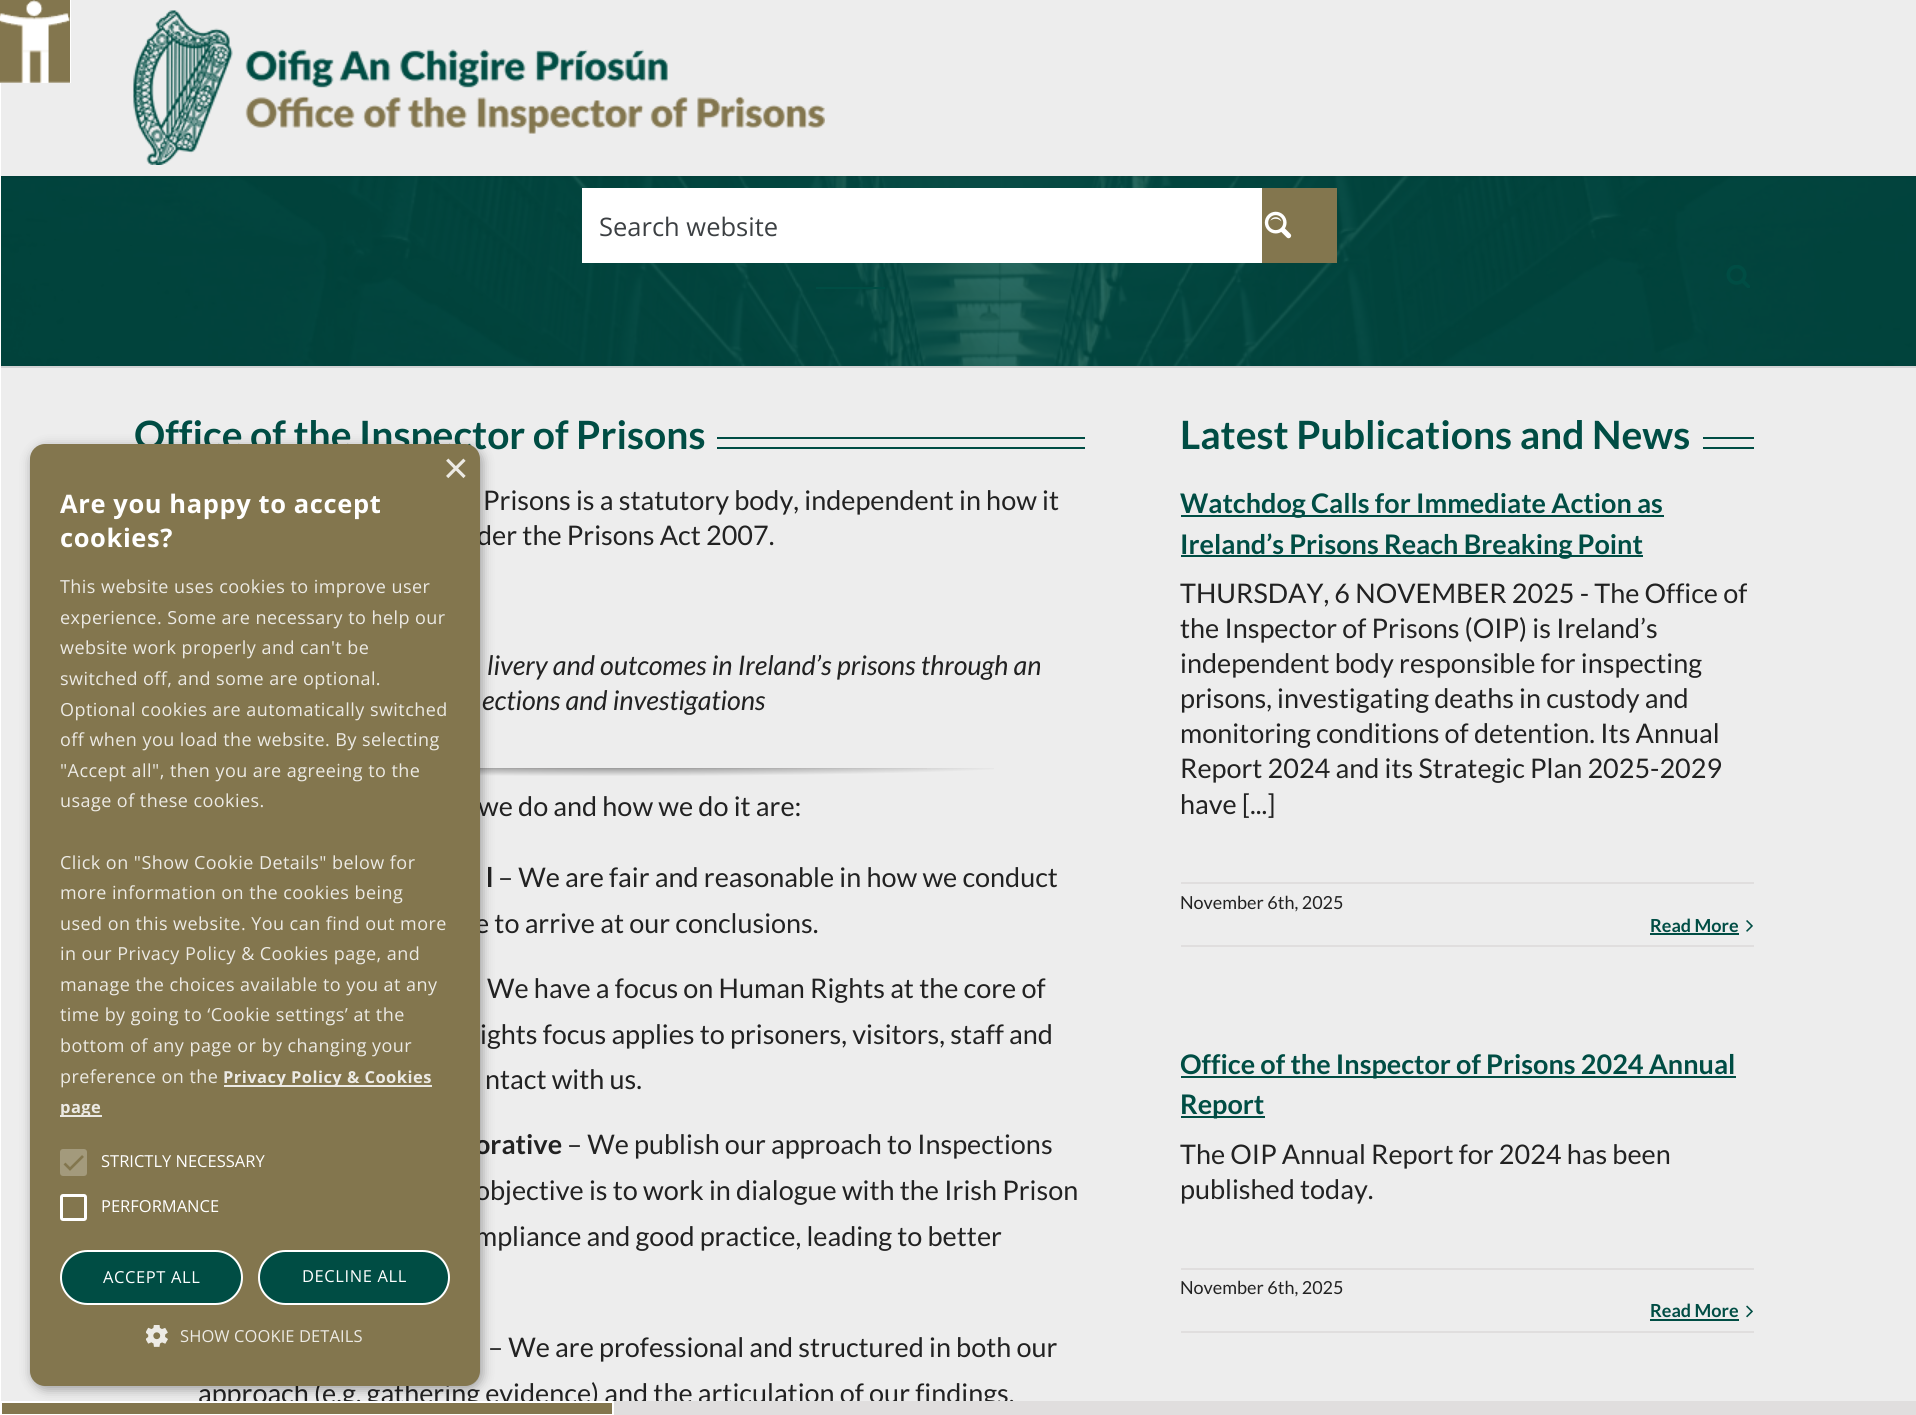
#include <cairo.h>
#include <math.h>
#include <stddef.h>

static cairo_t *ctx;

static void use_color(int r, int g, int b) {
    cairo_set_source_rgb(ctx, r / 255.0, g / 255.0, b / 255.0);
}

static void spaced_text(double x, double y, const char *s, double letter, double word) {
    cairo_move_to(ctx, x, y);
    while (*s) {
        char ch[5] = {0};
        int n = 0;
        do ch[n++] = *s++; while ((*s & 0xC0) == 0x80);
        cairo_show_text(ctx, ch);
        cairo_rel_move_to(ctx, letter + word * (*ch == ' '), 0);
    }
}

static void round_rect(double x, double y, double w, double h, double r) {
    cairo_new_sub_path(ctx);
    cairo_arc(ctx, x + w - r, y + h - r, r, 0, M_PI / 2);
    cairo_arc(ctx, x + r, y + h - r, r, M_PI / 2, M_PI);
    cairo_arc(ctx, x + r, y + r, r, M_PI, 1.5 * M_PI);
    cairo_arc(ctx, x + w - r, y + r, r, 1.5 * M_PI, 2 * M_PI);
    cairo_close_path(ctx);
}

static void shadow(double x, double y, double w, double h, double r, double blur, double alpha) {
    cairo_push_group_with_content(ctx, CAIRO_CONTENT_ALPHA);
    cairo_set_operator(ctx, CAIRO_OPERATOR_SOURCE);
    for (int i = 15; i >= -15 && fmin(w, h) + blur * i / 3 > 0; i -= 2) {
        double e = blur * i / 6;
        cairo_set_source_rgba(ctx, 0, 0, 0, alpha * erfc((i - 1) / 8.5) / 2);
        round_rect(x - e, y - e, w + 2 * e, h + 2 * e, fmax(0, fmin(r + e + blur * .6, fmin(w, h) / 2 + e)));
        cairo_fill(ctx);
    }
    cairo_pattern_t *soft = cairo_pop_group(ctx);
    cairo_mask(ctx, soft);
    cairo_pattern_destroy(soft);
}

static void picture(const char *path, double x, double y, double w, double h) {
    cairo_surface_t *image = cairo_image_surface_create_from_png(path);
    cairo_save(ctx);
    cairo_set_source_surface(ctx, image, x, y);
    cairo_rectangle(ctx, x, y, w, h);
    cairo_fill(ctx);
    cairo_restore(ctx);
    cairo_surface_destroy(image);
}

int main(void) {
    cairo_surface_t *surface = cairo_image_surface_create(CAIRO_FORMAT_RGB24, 1916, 1415);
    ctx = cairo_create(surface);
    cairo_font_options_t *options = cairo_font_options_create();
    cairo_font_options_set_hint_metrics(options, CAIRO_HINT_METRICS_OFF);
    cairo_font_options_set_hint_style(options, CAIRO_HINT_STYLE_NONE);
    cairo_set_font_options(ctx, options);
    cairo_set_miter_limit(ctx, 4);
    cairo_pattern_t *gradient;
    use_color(237, 237, 237);
    cairo_paint(ctx);
    picture("img4.png", 1, 176, 1915, 190);
    use_color(0, 0, 0);
    shadow(0, 2, 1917, 175, 0, 2, 0.12);
    use_color(210, 211, 212);
    cairo_rectangle(ctx, 0, 366, 1916, 2);
    cairo_fill(ctx);
    use_color(255, 255, 255);
    cairo_rectangle(ctx, 0, 83, 1, 1318);
    cairo_fill(ctx);
    use_color(237, 237, 237);
    cairo_rectangle(ctx, 1, 0, 1915, 176);
    cairo_fill(ctx);
    use_color(255, 255, 255);
    cairo_rectangle(ctx, 0, 0, 71, 83);
    cairo_fill(ctx);
    picture("img1.png", 0, 0, 70, 83);
    picture("img2.png", 133, 10, 692, 155);
    use_color(0, 77, 68);
    cairo_rectangle(ctx, 816, 287, 69, 2);
    cairo_fill(ctx);
    picture("img3.png", 1726, 265, 24, 23);
    use_color(255, 255, 255);
    cairo_rectangle(ctx, 582, 188, 680, 75);
    cairo_fill(ctx);
    cairo_select_font_face(ctx, "Open Sans", CAIRO_FONT_SLANT_NORMAL, CAIRO_FONT_WEIGHT_NORMAL);
    cairo_set_font_size(ctx, 25.5);
    use_color(60, 64, 67);
    cairo_move_to(ctx, 599, 236);
    cairo_show_text(ctx, "Search website");
    use_color(131, 118, 78);
    cairo_rectangle(ctx, 1262, 188, 75, 75);
    cairo_fill(ctx);
    picture("img5.png", 1264, 211, 28, 28);
    cairo_select_font_face(ctx, "Lato", CAIRO_FONT_SLANT_NORMAL, CAIRO_FONT_WEIGHT_BOLD);
    cairo_set_font_size(ctx, 39);
    use_color(0, 77, 68);
    cairo_move_to(ctx, 134, 449);
    cairo_show_text(ctx, "Office of the Inspector of Prisons");
    cairo_rectangle(ctx, 717, 437, 368, 2);
    cairo_fill(ctx);
    cairo_rectangle(ctx, 717, 447, 368, 2);
    cairo_fill(ctx);
    cairo_select_font_face(ctx, "Lato", CAIRO_FONT_SLANT_NORMAL, CAIRO_FONT_WEIGHT_NORMAL);
    cairo_set_font_size(ctx, 27);
    use_color(34, 34, 34);
    cairo_move_to(ctx, 483, 510);
    cairo_show_text(ctx, "Prisons is a statutory body, independent in how it");
    cairo_move_to(ctx, 477, 545);
    cairo_show_text(ctx, "der the Prisons Act 2007.");
    cairo_select_font_face(ctx, "Lato", CAIRO_FONT_SLANT_ITALIC, CAIRO_FONT_WEIGHT_NORMAL);
    cairo_move_to(ctx, 487, 675);
    cairo_show_text(ctx, "livery and outcomes in Ireland’s prisons through an");
    cairo_move_to(ctx, 482, 710);
    cairo_show_text(ctx, "ections and investigations");
    gradient = cairo_pattern_create_radial(0, 0, 0, 0, 0, 1);
    cairo_pattern_set_matrix(gradient, &(cairo_matrix_t){1.0 / 672, 0, 0, 1.0 / 3.2, -1.0 * 609 / 672, -1.0 * 767 / 3.2});
    cairo_pattern_add_color_stop_rgba(gradient, 0, 0.878, 0.871, 0.871, 1);
    cairo_pattern_add_color_stop_rgba(gradient, 0.8, 0.929, 0.929, 0.929, 1);
    cairo_set_source(ctx, gradient);
    cairo_pattern_destroy(gradient);
    cairo_rectangle(ctx, 480, 768, 447, 1);
    cairo_fill(ctx);
    gradient = cairo_pattern_create_radial(0, 0, 0, 0, 0, 1);
    cairo_pattern_set_matrix(gradient, &(cairo_matrix_t){1.0 / 672, 0, 0, 1.0 / 19, -1.0 * 609 / 672, -1.0 * 764 / 19});
    cairo_pattern_add_color_stop_rgba(gradient, 0, 0, 0, 0, 0.5);
    cairo_pattern_add_color_stop_rgba(gradient, 0.65, 0, 0, 0, 0);
    cairo_set_source(ctx, gradient);
    cairo_pattern_destroy(gradient);
    cairo_rectangle(ctx, 480, 768, 514, 8);
    cairo_fill(ctx);
    cairo_select_font_face(ctx, "Lato", CAIRO_FONT_SLANT_NORMAL, CAIRO_FONT_WEIGHT_NORMAL);
    use_color(34, 34, 34);
    cairo_move_to(ctx, 478, 816);
    cairo_show_text(ctx, "we do and how we do it are:");
    cairo_select_font_face(ctx, "Lato", CAIRO_FONT_SLANT_NORMAL, CAIRO_FONT_WEIGHT_BOLD);
    cairo_move_to(ctx, 486, 887);
    cairo_show_text(ctx, "l");
    cairo_select_font_face(ctx, "Lato", CAIRO_FONT_SLANT_NORMAL, CAIRO_FONT_WEIGHT_NORMAL);
    cairo_move_to(ctx, 498, 887);
    cairo_show_text(ctx, "– We are fair and reasonable in how we conduct");
    cairo_move_to(ctx, 475, 933);
    cairo_show_text(ctx, "e to arrive at our conclusions.");
    cairo_move_to(ctx, 487, 998);
    cairo_show_text(ctx, "We have a focus on Human Rights at the core of");
    cairo_move_to(ctx, 480, 1044);
    cairo_show_text(ctx, "ights focus applies to prisoners, visitors, staff and");
    cairo_move_to(ctx, 485, 1089);
    cairo_show_text(ctx, "ntact with us.");
    cairo_select_font_face(ctx, "Lato", CAIRO_FONT_SLANT_NORMAL, CAIRO_FONT_WEIGHT_BOLD);
    cairo_move_to(ctx, 475, 1154);
    cairo_show_text(ctx, "orative");
    cairo_select_font_face(ctx, "Lato", CAIRO_FONT_SLANT_NORMAL, CAIRO_FONT_WEIGHT_NORMAL);
    cairo_move_to(ctx, 567, 1154);
    cairo_show_text(ctx, "– We publish our approach to Inspections");
    cairo_move_to(ctx, 475, 1200);
    cairo_show_text(ctx, "objective is to work in dialogue with the Irish Prison");
    cairo_move_to(ctx, 475, 1246);
    cairo_show_text(ctx, "mpliance and good practice, leading to better");
    cairo_move_to(ctx, 488, 1357);
    cairo_show_text(ctx, "– We are professional and structured in both our");
    cairo_move_to(ctx, 198, 1403);
    cairo_show_text(ctx, "approach (e.g. gathering evidence) and the articulation of our findings,");
    cairo_select_font_face(ctx, "Lato", CAIRO_FONT_SLANT_NORMAL, CAIRO_FONT_WEIGHT_BOLD);
    cairo_set_font_size(ctx, 39);
    use_color(0, 77, 68);
    cairo_move_to(ctx, 1180, 449);
    cairo_show_text(ctx, "Latest Publications and News");
    cairo_rectangle(ctx, 1703, 437, 51, 2);
    cairo_fill(ctx);
    cairo_rectangle(ctx, 1703, 447, 51, 2);
    cairo_fill(ctx);
    cairo_rectangle(ctx, 1181, 515, 483, 2);
    cairo_fill(ctx);
    cairo_set_font_size(ctx, 27);
    cairo_move_to(ctx, 1180, 513);
    cairo_show_text(ctx, "Watchdog Calls for Immediate Action as");
    cairo_rectangle(ctx, 1181, 555, 462, 2);
    cairo_fill(ctx);
    cairo_move_to(ctx, 1180, 554);
    cairo_show_text(ctx, "Ireland’s Prisons Reach Breaking Point");
    cairo_select_font_face(ctx, "Lato", CAIRO_FONT_SLANT_NORMAL, CAIRO_FONT_WEIGHT_NORMAL);
    use_color(34, 34, 34);
    cairo_move_to(ctx, 1180, 603);
    cairo_show_text(ctx, "THURSDAY, 6 NOVEMBER 2025 - The Office of");
    cairo_move_to(ctx, 1180, 638);
    cairo_show_text(ctx, "the Inspector of Prisons (OIP) is Ireland’s");
    cairo_move_to(ctx, 1180, 673);
    cairo_show_text(ctx, "independent body responsible for inspecting");
    cairo_move_to(ctx, 1180, 708);
    cairo_show_text(ctx, "prisons, investigating deaths in custody and");
    cairo_move_to(ctx, 1180, 743);
    cairo_show_text(ctx, "monitoring conditions of detention. Its Annual");
    cairo_move_to(ctx, 1180, 778);
    cairo_show_text(ctx, "Report 2024 and its Strategic Plan 2025-2029");
    cairo_move_to(ctx, 1180, 814);
    cairo_show_text(ctx, "have [...]");
    use_color(224, 222, 222);
    cairo_rectangle(ctx, 1181, 882, 573, 2);
    cairo_fill(ctx);
    cairo_rectangle(ctx, 1181, 945, 573, 2);
    cairo_fill(ctx);
    cairo_set_font_size(ctx, 18);
    use_color(34, 34, 34);
    cairo_move_to(ctx, 1180, 909);
    cairo_show_text(ctx, "November 6th, 2025");
    cairo_select_font_face(ctx, "Lato", CAIRO_FONT_SLANT_NORMAL, CAIRO_FONT_WEIGHT_BOLD);
    use_color(0, 77, 68);
    cairo_move_to(ctx, 1650, 932);
    cairo_show_text(ctx, "Read More");
    cairo_rectangle(ctx, 1650, 933, 89, 2);
    cairo_fill(ctx);
    picture("img6.png", 1746, 920, 7, 12);
    cairo_rectangle(ctx, 1181, 1076, 555, 2);
    cairo_fill(ctx);
    cairo_set_font_size(ctx, 27);
    cairo_move_to(ctx, 1180, 1074);
    cairo_show_text(ctx, "Office of the Inspector of Prisons 2024 Annual");
    cairo_rectangle(ctx, 1181, 1116, 84, 2);
    cairo_fill(ctx);
    cairo_move_to(ctx, 1180, 1114);
    cairo_show_text(ctx, "Report");
    cairo_select_font_face(ctx, "Lato", CAIRO_FONT_SLANT_NORMAL, CAIRO_FONT_WEIGHT_NORMAL);
    use_color(34, 34, 34);
    cairo_move_to(ctx, 1180, 1164);
    cairo_show_text(ctx, "The OIP Annual Report for 2024 has been");
    cairo_move_to(ctx, 1180, 1199);
    cairo_show_text(ctx, "published today.");
    use_color(224, 222, 222);
    cairo_rectangle(ctx, 1181, 1268, 573, 2);
    cairo_fill(ctx);
    cairo_rectangle(ctx, 1181, 1331, 573, 2);
    cairo_fill(ctx);
    cairo_set_font_size(ctx, 18);
    use_color(34, 34, 34);
    cairo_move_to(ctx, 1180, 1294);
    cairo_show_text(ctx, "November 6th, 2025");
    cairo_select_font_face(ctx, "Lato", CAIRO_FONT_SLANT_NORMAL, CAIRO_FONT_WEIGHT_BOLD);
    use_color(0, 77, 68);
    cairo_move_to(ctx, 1650, 1317);
    cairo_show_text(ctx, "Read More");
    cairo_rectangle(ctx, 1650, 1319, 89, 2);
    cairo_fill(ctx);
    picture("img7.png", 1746, 1305, 7, 13);
    use_color(224, 222, 222);
    cairo_rectangle(ctx, 614, 1401, 1302, 14);
    cairo_fill(ctx);
    use_color(131, 118, 78);
    cairo_rectangle(ctx, 1, 1402, 612, 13);
    cairo_fill_preserve(ctx);
    use_color(255, 255, 255);
    cairo_stroke(ctx);
    use_color(0, 0, 0);
    shadow(32, 447, 450, 942, 15, 6, 0.35);
    use_color(131, 118, 78);
    round_rect(30, 444, 450, 942, 15);
    cairo_fill(ctx);
    cairo_select_font_face(ctx, "Liberation Sans", CAIRO_FONT_SLANT_NORMAL, CAIRO_FONT_WEIGHT_NORMAL);
    cairo_set_font_size(ctx, 44);
    use_color(236, 234, 228);
    cairo_move_to(ctx, 443, 483);
    cairo_show_text(ctx, "×");
    cairo_select_font_face(ctx, "Open Sans", CAIRO_FONT_SLANT_NORMAL, CAIRO_FONT_WEIGHT_BOLD);
    cairo_set_font_size(ctx, 25.5);
    use_color(255, 255, 255);
    spaced_text(60, 513, "Are you happy to accept", 0.6, 0);
    spaced_text(60, 547, "cookies?", 0.6, 0);
    cairo_select_font_face(ctx, "Open Sans", CAIRO_FONT_SLANT_NORMAL, CAIRO_FONT_WEIGHT_NORMAL);
    cairo_set_font_size(ctx, 18);
    use_color(236, 234, 228);
    spaced_text(60, 593, "This website uses cookies to improve user", 0.45, 0);
    spaced_text(60, 624, "experience. Some are necessary to help our", 0.45, 0);
    spaced_text(60, 654, "website work properly and can't be", 0.45, 0);
    spaced_text(60, 685, "switched off, and some are optional.", 0.45, 0);
    spaced_text(60, 716, "Optional cookies are automatically switched", 0.45, 0);
    spaced_text(60, 746, "off when you load the website. By selecting", 0.45, 0);
    spaced_text(60, 777, "\"Accept all\", then you are agreeing to the", 0.45, 0);
    spaced_text(60, 807, "usage of these cookies.", 0.45, 0);
    spaced_text(60, 869, "Click on \"Show Cookie Details\" below for", 0.45, 0);
    spaced_text(60, 899, "more information on the cookies being", 0.45, 0);
    spaced_text(60, 930, "used on this website. You can find out more", 0.45, 0);
    spaced_text(60, 960, "in our Privacy Policy & Cookies page, and", 0.45, 0);
    spaced_text(60, 991, "manage the choices available to you at any", 0.45, 0);
    spaced_text(60, 1021, "time by going to ‘Cookie settings’ at the", 0.45, 0);
    spaced_text(60, 1052, "bottom of any page or by changing your", 0.45, 0);
    spaced_text(60, 1083, "preference on the", 0.45, 0);
    cairo_rectangle(ctx, 224, 1085, 208, 2);
    cairo_fill(ctx);
    cairo_select_font_face(ctx, "Open Sans", CAIRO_FONT_SLANT_NORMAL, CAIRO_FONT_WEIGHT_BOLD);
    cairo_set_font_size(ctx, 16.5);
    spaced_text(223, 1083, "Privacy Policy & Cookies", 0.45, 0);
    cairo_rectangle(ctx, 60, 1115, 42, 2);
    cairo_fill(ctx);
    spaced_text(60, 1113, "page", 0.45, 0);
    use_color(163, 154, 124);
    round_rect(60, 1149, 27, 27, 3);
    cairo_fill(ctx);
    cairo_new_path(ctx);
    cairo_move_to(ctx, 64.5, 1163.5);
    cairo_line_to(ctx, 70, 1169);
    cairo_line_to(ctx, 83, 1156);
    use_color(131, 118, 78);
    cairo_set_line_width(ctx, 2.7);
    cairo_stroke(ctx);
    cairo_select_font_face(ctx, "Open Sans", CAIRO_FONT_SLANT_NORMAL, CAIRO_FONT_WEIGHT_NORMAL);
    use_color(255, 255, 255);
    cairo_move_to(ctx, 101, 1167);
    cairo_show_text(ctx, "STRICTLY NECESSARY");
    round_rect(61.5, 1195.5, 24, 24, 1.5);
    cairo_set_line_width(ctx, 3);
    cairo_stroke(ctx);
    cairo_move_to(ctx, 101, 1212);
    cairo_show_text(ctx, "PERFORMANCE");
    use_color(0, 77, 68);
    round_rect(61, 1251, 181, 53, 26.5);
    cairo_fill_preserve(ctx);
    use_color(255, 255, 255);
    cairo_set_line_width(ctx, 2);
    cairo_stroke(ctx);
    spaced_text(103, 1283, "ACCEPT ALL", 0.6, 0);
    use_color(0, 77, 68);
    round_rect(259, 1251, 190, 53, 26.5);
    cairo_fill_preserve(ctx);
    use_color(255, 255, 255);
    cairo_stroke(ctx);
    spaced_text(302, 1282, "DECLINE ALL", 0.6, 0);
    picture("img8.png", 146, 1325, 22, 22);
    use_color(236, 234, 228);
    spaced_text(180, 1342, "SHOW COOKIE DETAILS", 0.1, 0);
    cairo_surface_write_to_png(surface, "result.png");
    cairo_font_options_destroy(options);
    cairo_destroy(ctx);
    cairo_surface_destroy(surface);
    return 0;
}
